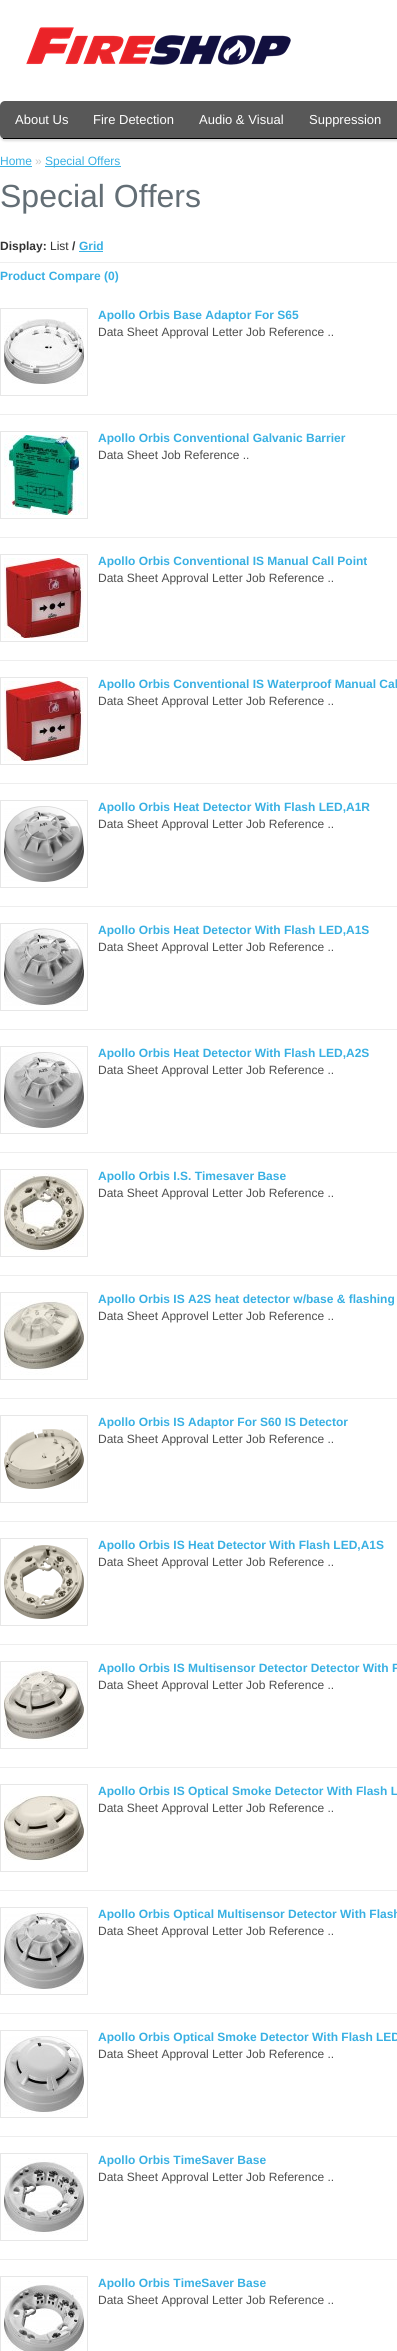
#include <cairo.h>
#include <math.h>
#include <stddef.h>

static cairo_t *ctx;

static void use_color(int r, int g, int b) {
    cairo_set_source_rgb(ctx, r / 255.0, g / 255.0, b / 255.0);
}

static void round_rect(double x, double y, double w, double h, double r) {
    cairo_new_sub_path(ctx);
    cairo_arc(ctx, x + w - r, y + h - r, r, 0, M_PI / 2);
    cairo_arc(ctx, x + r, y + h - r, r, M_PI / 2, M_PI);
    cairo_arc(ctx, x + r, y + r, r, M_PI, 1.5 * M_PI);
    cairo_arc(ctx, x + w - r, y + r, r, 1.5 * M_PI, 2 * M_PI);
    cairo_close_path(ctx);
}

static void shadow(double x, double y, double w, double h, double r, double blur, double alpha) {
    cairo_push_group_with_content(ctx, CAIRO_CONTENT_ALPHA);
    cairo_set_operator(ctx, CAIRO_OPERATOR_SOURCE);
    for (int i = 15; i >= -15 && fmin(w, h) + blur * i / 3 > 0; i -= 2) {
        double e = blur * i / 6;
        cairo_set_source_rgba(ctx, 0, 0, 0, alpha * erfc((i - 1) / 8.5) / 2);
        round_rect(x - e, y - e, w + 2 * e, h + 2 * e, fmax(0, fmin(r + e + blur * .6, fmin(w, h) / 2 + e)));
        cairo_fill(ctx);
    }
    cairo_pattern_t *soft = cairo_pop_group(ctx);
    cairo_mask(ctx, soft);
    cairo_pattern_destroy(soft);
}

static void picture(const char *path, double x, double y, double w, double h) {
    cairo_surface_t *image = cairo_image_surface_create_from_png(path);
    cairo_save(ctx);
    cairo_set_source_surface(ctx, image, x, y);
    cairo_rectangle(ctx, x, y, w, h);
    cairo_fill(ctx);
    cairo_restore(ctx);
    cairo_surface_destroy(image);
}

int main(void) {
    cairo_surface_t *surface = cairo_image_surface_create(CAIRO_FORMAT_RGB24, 397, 2351);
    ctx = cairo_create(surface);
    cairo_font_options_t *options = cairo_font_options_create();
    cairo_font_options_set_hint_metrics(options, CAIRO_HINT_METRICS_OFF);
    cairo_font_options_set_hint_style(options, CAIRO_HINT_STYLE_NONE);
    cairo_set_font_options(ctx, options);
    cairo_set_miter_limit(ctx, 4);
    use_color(255, 255, 255);
    cairo_paint(ctx);
    picture("img1.png", 26, 27, 265, 38);
    use_color(221, 221, 221);
    shadow(0, 103, 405, 38, 5, 1, 1);
    use_color(88, 88, 88);
    round_rect(0, 101, 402, 38, 5);
    cairo_fill(ctx);
    use_color(0, 0, 0);
    cairo_rectangle(ctx, 3, 138, 394, 1);
    cairo_fill(ctx);
    cairo_select_font_face(ctx, "Liberation Sans", CAIRO_FONT_SLANT_NORMAL, CAIRO_FONT_WEIGHT_NORMAL);
    cairo_set_font_size(ctx, 13);
    use_color(255, 255, 255);
    cairo_move_to(ctx, 15, 124);
    cairo_show_text(ctx, "About Us");
    cairo_move_to(ctx, 93, 124);
    cairo_show_text(ctx, "Fire Detection");
    cairo_move_to(ctx, 199, 124);
    cairo_show_text(ctx, "Audio & Visual");
    cairo_move_to(ctx, 309, 124);
    cairo_show_text(ctx, "Suppression");
    cairo_set_font_size(ctx, 12);
    use_color(56, 176, 227);
    cairo_move_to(ctx, 0, 165);
    cairo_show_text(ctx, "Home");
    cairo_rectangle(ctx, 0, 166, 32, 1);
    cairo_fill(ctx);
    use_color(204, 204, 204);
    cairo_move_to(ctx, 35, 165);
    cairo_show_text(ctx, "»");
    use_color(56, 176, 227);
    cairo_rectangle(ctx, 45, 166, 76, 1);
    cairo_fill(ctx);
    cairo_move_to(ctx, 45, 165);
    cairo_show_text(ctx, "Special Offers");
    cairo_set_font_size(ctx, 32);
    use_color(99, 110, 117);
    cairo_move_to(ctx, 0, 207);
    cairo_show_text(ctx, "Special Offers");
    use_color(238, 238, 238);
    cairo_rectangle(ctx, 0, 262, 397, 1);
    cairo_fill(ctx);
    cairo_select_font_face(ctx, "Liberation Sans", CAIRO_FONT_SLANT_NORMAL, CAIRO_FONT_WEIGHT_BOLD);
    cairo_set_font_size(ctx, 12);
    use_color(51, 51, 51);
    cairo_move_to(ctx, 0, 250);
    cairo_show_text(ctx, "Display:");
    cairo_select_font_face(ctx, "Liberation Sans", CAIRO_FONT_SLANT_NORMAL, CAIRO_FONT_WEIGHT_NORMAL);
    cairo_move_to(ctx, 50, 250);
    cairo_show_text(ctx, "List");
    cairo_select_font_face(ctx, "Liberation Sans", CAIRO_FONT_SLANT_NORMAL, CAIRO_FONT_WEIGHT_BOLD);
    cairo_move_to(ctx, 72, 250);
    cairo_show_text(ctx, "/");
    use_color(56, 176, 227);
    cairo_move_to(ctx, 79, 250);
    cairo_show_text(ctx, "Grid");
    cairo_rectangle(ctx, 79, 251, 24, 1);
    cairo_fill(ctx);
    cairo_move_to(ctx, 0, 280);
    cairo_show_text(ctx, "Product Compare (0)");
    cairo_rectangle(ctx, 0.5, 308.5, 87, 87);
    use_color(231, 231, 231);
    cairo_set_line_width(ctx, 1);
    cairo_stroke(ctx);
    picture("img2.png", 4, 319, 80, 65);
    use_color(56, 176, 227);
    cairo_move_to(ctx, 98, 319);
    cairo_show_text(ctx, "Apollo Orbis Base Adaptor For S65");
    cairo_select_font_face(ctx, "Liberation Sans", CAIRO_FONT_SLANT_NORMAL, CAIRO_FONT_WEIGHT_NORMAL);
    use_color(77, 77, 77);
    cairo_move_to(ctx, 98, 336);
    cairo_show_text(ctx, "Data Sheet Approval Letter Job Reference ..");
    use_color(238, 238, 238);
    cairo_rectangle(ctx, 0, 414, 397, 1);
    cairo_fill(ctx);
    cairo_rectangle(ctx, 0.5, 431.5, 87, 87);
    use_color(231, 231, 231);
    cairo_stroke(ctx);
    picture("img3.png", 4, 435, 80, 80);
    cairo_select_font_face(ctx, "Liberation Sans", CAIRO_FONT_SLANT_NORMAL, CAIRO_FONT_WEIGHT_BOLD);
    use_color(56, 176, 227);
    cairo_move_to(ctx, 98, 442);
    cairo_show_text(ctx, "Apollo Orbis Conventional Galvanic Barrier");
    cairo_select_font_face(ctx, "Liberation Sans", CAIRO_FONT_SLANT_NORMAL, CAIRO_FONT_WEIGHT_NORMAL);
    use_color(77, 77, 77);
    cairo_move_to(ctx, 98, 459);
    cairo_show_text(ctx, "Data Sheet Job Reference ..");
    use_color(238, 238, 238);
    cairo_rectangle(ctx, 0, 537, 397, 1);
    cairo_fill(ctx);
    cairo_rectangle(ctx, 0.5, 554.5, 87, 87);
    use_color(231, 231, 231);
    cairo_stroke(ctx);
    picture("img4.png", 4, 558, 80, 80);
    cairo_select_font_face(ctx, "Liberation Sans", CAIRO_FONT_SLANT_NORMAL, CAIRO_FONT_WEIGHT_BOLD);
    use_color(56, 176, 227);
    cairo_move_to(ctx, 98, 565);
    cairo_show_text(ctx, "Apollo Orbis Conventional IS Manual Call Point");
    cairo_select_font_face(ctx, "Liberation Sans", CAIRO_FONT_SLANT_NORMAL, CAIRO_FONT_WEIGHT_NORMAL);
    use_color(77, 77, 77);
    cairo_move_to(ctx, 98, 582);
    cairo_show_text(ctx, "Data Sheet Approval Letter Job Reference ..");
    use_color(238, 238, 238);
    cairo_rectangle(ctx, 0, 660, 397, 1);
    cairo_fill(ctx);
    cairo_rectangle(ctx, 0.5, 677.5, 87, 87);
    use_color(231, 231, 231);
    cairo_stroke(ctx);
    picture("img4.png", 4, 681, 80, 80);
    cairo_select_font_face(ctx, "Liberation Sans", CAIRO_FONT_SLANT_NORMAL, CAIRO_FONT_WEIGHT_BOLD);
    use_color(56, 176, 227);
    cairo_move_to(ctx, 98, 688);
    cairo_show_text(ctx, "Apollo Orbis Conventional IS Waterproof Manual Cal");
    cairo_select_font_face(ctx, "Liberation Sans", CAIRO_FONT_SLANT_NORMAL, CAIRO_FONT_WEIGHT_NORMAL);
    use_color(77, 77, 77);
    cairo_move_to(ctx, 98, 705);
    cairo_show_text(ctx, "Data Sheet Approval Letter Job Reference ..");
    use_color(238, 238, 238);
    cairo_rectangle(ctx, 0, 783, 397, 1);
    cairo_fill(ctx);
    cairo_rectangle(ctx, 0.5, 800.5, 87, 87);
    use_color(231, 231, 231);
    cairo_stroke(ctx);
    picture("img5.png", 4, 806, 80, 76);
    cairo_select_font_face(ctx, "Liberation Sans", CAIRO_FONT_SLANT_NORMAL, CAIRO_FONT_WEIGHT_BOLD);
    use_color(56, 176, 227);
    cairo_move_to(ctx, 98, 811);
    cairo_show_text(ctx, "Apollo Orbis Heat Detector With Flash LED,A1R");
    cairo_select_font_face(ctx, "Liberation Sans", CAIRO_FONT_SLANT_NORMAL, CAIRO_FONT_WEIGHT_NORMAL);
    use_color(77, 77, 77);
    cairo_move_to(ctx, 98, 828);
    cairo_show_text(ctx, "Data Sheet Approval Letter Job Reference ..");
    use_color(238, 238, 238);
    cairo_rectangle(ctx, 0, 906, 397, 1);
    cairo_fill(ctx);
    cairo_rectangle(ctx, 0.5, 923.5, 87, 87);
    use_color(231, 231, 231);
    cairo_stroke(ctx);
    picture("img6.png", 4, 928, 80, 78);
    cairo_select_font_face(ctx, "Liberation Sans", CAIRO_FONT_SLANT_NORMAL, CAIRO_FONT_WEIGHT_BOLD);
    use_color(56, 176, 227);
    cairo_move_to(ctx, 98, 934);
    cairo_show_text(ctx, "Apollo Orbis Heat Detector With Flash LED,A1S");
    cairo_select_font_face(ctx, "Liberation Sans", CAIRO_FONT_SLANT_NORMAL, CAIRO_FONT_WEIGHT_NORMAL);
    use_color(77, 77, 77);
    cairo_move_to(ctx, 98, 951);
    cairo_show_text(ctx, "Data Sheet Approval Letter Job Reference ..");
    use_color(238, 238, 238);
    cairo_rectangle(ctx, 0, 1029, 397, 1);
    cairo_fill(ctx);
    cairo_rectangle(ctx, 0.5, 1046.5, 87, 87);
    use_color(231, 231, 231);
    cairo_stroke(ctx);
    picture("img7.png", 4, 1051, 80, 77);
    cairo_select_font_face(ctx, "Liberation Sans", CAIRO_FONT_SLANT_NORMAL, CAIRO_FONT_WEIGHT_BOLD);
    use_color(56, 176, 227);
    cairo_move_to(ctx, 98, 1057);
    cairo_show_text(ctx, "Apollo Orbis Heat Detector With Flash LED,A2S");
    cairo_select_font_face(ctx, "Liberation Sans", CAIRO_FONT_SLANT_NORMAL, CAIRO_FONT_WEIGHT_NORMAL);
    use_color(77, 77, 77);
    cairo_move_to(ctx, 98, 1074);
    cairo_show_text(ctx, "Data Sheet Approval Letter Job Reference ..");
    use_color(238, 238, 238);
    cairo_rectangle(ctx, 0, 1152, 397, 1);
    cairo_fill(ctx);
    cairo_rectangle(ctx, 0.5, 1169.5, 87, 87);
    use_color(231, 231, 231);
    cairo_stroke(ctx);
    picture("img8.png", 4, 1173, 80, 79);
    cairo_select_font_face(ctx, "Liberation Sans", CAIRO_FONT_SLANT_NORMAL, CAIRO_FONT_WEIGHT_BOLD);
    use_color(56, 176, 227);
    cairo_move_to(ctx, 98, 1180);
    cairo_show_text(ctx, "Apollo Orbis I.S. Timesaver Base");
    cairo_select_font_face(ctx, "Liberation Sans", CAIRO_FONT_SLANT_NORMAL, CAIRO_FONT_WEIGHT_NORMAL);
    use_color(77, 77, 77);
    cairo_move_to(ctx, 98, 1197);
    cairo_show_text(ctx, "Data Sheet Approval Letter Job Reference ..");
    use_color(238, 238, 238);
    cairo_rectangle(ctx, 0, 1275, 397, 1);
    cairo_fill(ctx);
    cairo_rectangle(ctx, 0.5, 1292.5, 87, 87);
    use_color(231, 231, 231);
    cairo_stroke(ctx);
    picture("img9.png", 4, 1300, 80, 75);
    cairo_select_font_face(ctx, "Liberation Sans", CAIRO_FONT_SLANT_NORMAL, CAIRO_FONT_WEIGHT_BOLD);
    use_color(56, 176, 227);
    cairo_move_to(ctx, 98, 1303);
    cairo_show_text(ctx, "Apollo Orbis IS A2S heat detector w/base & flashing");
    cairo_select_font_face(ctx, "Liberation Sans", CAIRO_FONT_SLANT_NORMAL, CAIRO_FONT_WEIGHT_NORMAL);
    use_color(77, 77, 77);
    cairo_move_to(ctx, 98, 1320);
    cairo_show_text(ctx, "Data Sheet Approvel Letter Job Reference ..");
    use_color(238, 238, 238);
    cairo_rectangle(ctx, 0, 1398, 397, 1);
    cairo_fill(ctx);
    cairo_rectangle(ctx, 0.5, 1415.5, 87, 87);
    use_color(231, 231, 231);
    cairo_stroke(ctx);
    picture("img10.png", 4, 1429, 80, 60);
    cairo_select_font_face(ctx, "Liberation Sans", CAIRO_FONT_SLANT_NORMAL, CAIRO_FONT_WEIGHT_BOLD);
    use_color(56, 176, 227);
    cairo_move_to(ctx, 98, 1426);
    cairo_show_text(ctx, "Apollo Orbis IS Adaptor For S60 IS Detector");
    cairo_select_font_face(ctx, "Liberation Sans", CAIRO_FONT_SLANT_NORMAL, CAIRO_FONT_WEIGHT_NORMAL);
    use_color(77, 77, 77);
    cairo_move_to(ctx, 98, 1443);
    cairo_show_text(ctx, "Data Sheet Approval Letter Job Reference ..");
    use_color(238, 238, 238);
    cairo_rectangle(ctx, 0, 1521, 397, 1);
    cairo_fill(ctx);
    cairo_rectangle(ctx, 0.5, 1538.5, 87, 87);
    use_color(231, 231, 231);
    cairo_stroke(ctx);
    picture("img11.png", 4, 1545, 80, 74);
    cairo_select_font_face(ctx, "Liberation Sans", CAIRO_FONT_SLANT_NORMAL, CAIRO_FONT_WEIGHT_BOLD);
    use_color(56, 176, 227);
    cairo_move_to(ctx, 98, 1549);
    cairo_show_text(ctx, "Apollo Orbis IS Heat Detector With Flash LED,A1S");
    cairo_select_font_face(ctx, "Liberation Sans", CAIRO_FONT_SLANT_NORMAL, CAIRO_FONT_WEIGHT_NORMAL);
    use_color(77, 77, 77);
    cairo_move_to(ctx, 98, 1566);
    cairo_show_text(ctx, "Data Sheet Approval Letter Job Reference ..");
    use_color(238, 238, 238);
    cairo_rectangle(ctx, 0, 1644, 397, 1);
    cairo_fill(ctx);
    cairo_rectangle(ctx, 0.5, 1661.5, 87, 87);
    use_color(231, 231, 231);
    cairo_stroke(ctx);
    picture("img12.png", 4, 1666, 80, 75);
    cairo_select_font_face(ctx, "Liberation Sans", CAIRO_FONT_SLANT_NORMAL, CAIRO_FONT_WEIGHT_BOLD);
    use_color(56, 176, 227);
    cairo_move_to(ctx, 98, 1672);
    cairo_show_text(ctx, "Apollo Orbis IS Multisensor Detector Detector With F");
    cairo_select_font_face(ctx, "Liberation Sans", CAIRO_FONT_SLANT_NORMAL, CAIRO_FONT_WEIGHT_NORMAL);
    use_color(77, 77, 77);
    cairo_move_to(ctx, 98, 1689);
    cairo_show_text(ctx, "Data Sheet Approval Letter Job Reference ..");
    use_color(238, 238, 238);
    cairo_rectangle(ctx, 0, 1767, 397, 1);
    cairo_fill(ctx);
    cairo_rectangle(ctx, 0.5, 1784.5, 87, 87);
    use_color(231, 231, 231);
    cairo_stroke(ctx);
    picture("img13.png", 4, 1794, 80, 67);
    cairo_select_font_face(ctx, "Liberation Sans", CAIRO_FONT_SLANT_NORMAL, CAIRO_FONT_WEIGHT_BOLD);
    use_color(56, 176, 227);
    cairo_move_to(ctx, 98, 1795);
    cairo_show_text(ctx, "Apollo Orbis IS Optical Smoke Detector With Flash L");
    cairo_select_font_face(ctx, "Liberation Sans", CAIRO_FONT_SLANT_NORMAL, CAIRO_FONT_WEIGHT_NORMAL);
    use_color(77, 77, 77);
    cairo_move_to(ctx, 98, 1812);
    cairo_show_text(ctx, "Data Sheet Approval Letter Job Reference ..");
    use_color(238, 238, 238);
    cairo_rectangle(ctx, 0, 1890, 397, 1);
    cairo_fill(ctx);
    cairo_rectangle(ctx, 0.5, 1907.5, 87, 87);
    use_color(231, 231, 231);
    cairo_stroke(ctx);
    picture("img14.png", 4, 1911, 80, 79);
    cairo_select_font_face(ctx, "Liberation Sans", CAIRO_FONT_SLANT_NORMAL, CAIRO_FONT_WEIGHT_BOLD);
    use_color(56, 176, 227);
    cairo_move_to(ctx, 98, 1918);
    cairo_show_text(ctx, "Apollo Orbis Optical Multisensor Detector With Flash");
    cairo_select_font_face(ctx, "Liberation Sans", CAIRO_FONT_SLANT_NORMAL, CAIRO_FONT_WEIGHT_NORMAL);
    use_color(77, 77, 77);
    cairo_move_to(ctx, 98, 1935);
    cairo_show_text(ctx, "Data Sheet Approval Letter Job Reference ..");
    use_color(238, 238, 238);
    cairo_rectangle(ctx, 0, 2013, 397, 1);
    cairo_fill(ctx);
    cairo_rectangle(ctx, 0.5, 2030.5, 87, 87);
    use_color(231, 231, 231);
    cairo_stroke(ctx);
    picture("img15.png", 4, 2036, 80, 77);
    cairo_select_font_face(ctx, "Liberation Sans", CAIRO_FONT_SLANT_NORMAL, CAIRO_FONT_WEIGHT_BOLD);
    use_color(56, 176, 227);
    cairo_move_to(ctx, 98, 2041);
    cairo_show_text(ctx, "Apollo Orbis Optical Smoke Detector With Flash LED");
    cairo_select_font_face(ctx, "Liberation Sans", CAIRO_FONT_SLANT_NORMAL, CAIRO_FONT_WEIGHT_NORMAL);
    use_color(77, 77, 77);
    cairo_move_to(ctx, 98, 2058);
    cairo_show_text(ctx, "Data Sheet Approval Letter Job Reference ..");
    use_color(238, 238, 238);
    cairo_rectangle(ctx, 0, 2136, 397, 1);
    cairo_fill(ctx);
    cairo_rectangle(ctx, 0.5, 2153.5, 87, 87);
    use_color(231, 231, 231);
    cairo_stroke(ctx);
    picture("img16.png", 4, 2158, 80, 77);
    cairo_select_font_face(ctx, "Liberation Sans", CAIRO_FONT_SLANT_NORMAL, CAIRO_FONT_WEIGHT_BOLD);
    use_color(56, 176, 227);
    cairo_move_to(ctx, 98, 2164);
    cairo_show_text(ctx, "Apollo Orbis TimeSaver Base");
    cairo_select_font_face(ctx, "Liberation Sans", CAIRO_FONT_SLANT_NORMAL, CAIRO_FONT_WEIGHT_NORMAL);
    use_color(77, 77, 77);
    cairo_move_to(ctx, 98, 2181);
    cairo_show_text(ctx, "Data Sheet Approval Letter Job Reference ..");
    use_color(238, 238, 238);
    cairo_rectangle(ctx, 0, 2259, 397, 1);
    cairo_fill(ctx);
    cairo_rectangle(ctx, 0.5, 2276.5, 87, 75);
    use_color(231, 231, 231);
    cairo_stroke(ctx);
    picture("img17.png", 4, 2281, 80, 70);
    cairo_select_font_face(ctx, "Liberation Sans", CAIRO_FONT_SLANT_NORMAL, CAIRO_FONT_WEIGHT_BOLD);
    use_color(56, 176, 227);
    cairo_move_to(ctx, 98, 2287);
    cairo_show_text(ctx, "Apollo Orbis TimeSaver Base");
    cairo_select_font_face(ctx, "Liberation Sans", CAIRO_FONT_SLANT_NORMAL, CAIRO_FONT_WEIGHT_NORMAL);
    use_color(77, 77, 77);
    cairo_move_to(ctx, 98, 2304);
    cairo_show_text(ctx, "Data Sheet Approval Letter Job Reference ..");
    cairo_surface_write_to_png(surface, "result.png");
    cairo_font_options_destroy(options);
    cairo_destroy(ctx);
    cairo_surface_destroy(surface);
    return 0;
}
